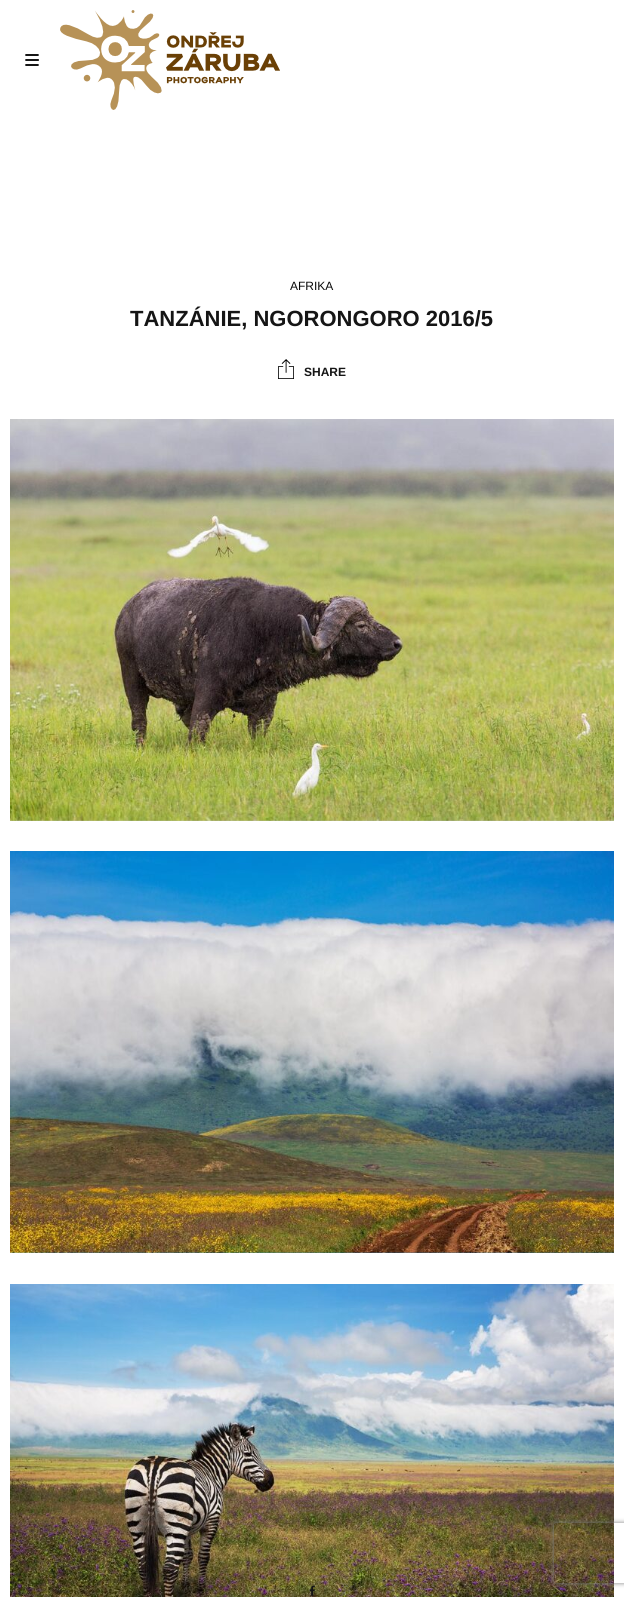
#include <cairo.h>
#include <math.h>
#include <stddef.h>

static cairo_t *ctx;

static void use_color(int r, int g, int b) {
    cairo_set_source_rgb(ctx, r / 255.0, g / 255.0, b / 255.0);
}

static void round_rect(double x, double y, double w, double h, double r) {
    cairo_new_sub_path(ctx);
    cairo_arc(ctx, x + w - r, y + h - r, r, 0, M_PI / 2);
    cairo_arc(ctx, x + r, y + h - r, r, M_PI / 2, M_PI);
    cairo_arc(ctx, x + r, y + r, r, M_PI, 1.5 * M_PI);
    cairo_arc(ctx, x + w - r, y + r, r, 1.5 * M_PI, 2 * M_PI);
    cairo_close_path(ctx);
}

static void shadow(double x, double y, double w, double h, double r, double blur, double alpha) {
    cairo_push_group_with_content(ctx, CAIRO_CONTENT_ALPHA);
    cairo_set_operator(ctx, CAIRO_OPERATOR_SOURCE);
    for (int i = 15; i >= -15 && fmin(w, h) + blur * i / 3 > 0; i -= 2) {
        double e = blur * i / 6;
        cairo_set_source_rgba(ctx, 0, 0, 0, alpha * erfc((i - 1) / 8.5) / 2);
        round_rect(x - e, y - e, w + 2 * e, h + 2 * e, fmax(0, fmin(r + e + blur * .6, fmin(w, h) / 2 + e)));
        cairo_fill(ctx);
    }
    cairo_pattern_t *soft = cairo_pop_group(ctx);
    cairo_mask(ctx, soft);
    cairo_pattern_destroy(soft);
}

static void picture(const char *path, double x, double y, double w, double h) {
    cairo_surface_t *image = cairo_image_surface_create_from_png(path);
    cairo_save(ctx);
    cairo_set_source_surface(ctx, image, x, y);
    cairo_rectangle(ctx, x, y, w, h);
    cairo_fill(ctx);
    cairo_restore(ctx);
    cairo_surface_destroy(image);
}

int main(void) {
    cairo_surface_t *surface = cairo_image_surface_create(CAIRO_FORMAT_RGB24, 624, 1597);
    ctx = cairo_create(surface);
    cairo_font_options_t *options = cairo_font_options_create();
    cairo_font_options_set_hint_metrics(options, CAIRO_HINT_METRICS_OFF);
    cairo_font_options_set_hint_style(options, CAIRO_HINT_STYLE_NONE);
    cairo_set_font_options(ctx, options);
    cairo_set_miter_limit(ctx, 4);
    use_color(255, 255, 255);
    cairo_paint(ctx);
    picture("img1.png", 25, 54, 14, 12);
    picture("img2.png", 60, 10, 220, 100);
    cairo_select_font_face(ctx, "Liberation Sans", CAIRO_FONT_SLANT_NORMAL, CAIRO_FONT_WEIGHT_NORMAL);
    cairo_set_font_size(ctx, 12);
    use_color(10, 10, 10);
    cairo_move_to(ctx, 290, 290);
    cairo_show_text(ctx, "AFRIKA");
    cairo_select_font_face(ctx, "Liberation Sans", CAIRO_FONT_SLANT_NORMAL, CAIRO_FONT_WEIGHT_BOLD);
    cairo_set_font_size(ctx, 22);
    use_color(21, 21, 21);
    cairo_move_to(ctx, 130, 326);
    cairo_show_text(ctx, "TANZÁNIE, NGORONGORO 2016/5");
    picture("img3.png", 278, 359, 16, 20);
    cairo_set_font_size(ctx, 12);
    cairo_move_to(ctx, 304, 376);
    cairo_show_text(ctx, "SHARE");
    picture("img4.png", 10, 419, 604, 402);
    picture("img5.png", 10, 851, 604, 402);
    picture("img6.png", 10, 1284, 604, 313);
    picture("img7.png", 309, 1585, 6, 11);
    cairo_save(ctx);
    cairo_set_fill_rule(ctx, CAIRO_FILL_RULE_EVEN_ODD);
    cairo_new_path(ctx);
    cairo_move_to(ctx, 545, 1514);
    cairo_line_to(ctx, 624, 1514);
    cairo_line_to(ctx, 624, 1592);
    cairo_line_to(ctx, 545, 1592);
    cairo_close_path(ctx);
    cairo_move_to(ctx, 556, 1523);
    cairo_line_to(ctx, 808, 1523);
    cairo_curve_to(ctx, 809, 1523, 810, 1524, 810, 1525);
    cairo_line_to(ctx, 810, 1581);
    cairo_curve_to(ctx, 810, 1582, 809, 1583, 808, 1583);
    cairo_line_to(ctx, 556, 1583);
    cairo_curve_to(ctx, 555, 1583, 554, 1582, 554, 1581);
    cairo_line_to(ctx, 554, 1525);
    cairo_curve_to(ctx, 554, 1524, 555, 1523, 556, 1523);
    cairo_close_path(ctx);
    cairo_clip(ctx);
    use_color(128, 128, 128);
    shadow(554, 1523, 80, 60, 2, 2.5, 1);
    cairo_restore(ctx);
    cairo_surface_write_to_png(surface, "result.png");
    cairo_font_options_destroy(options);
    cairo_destroy(ctx);
    cairo_surface_destroy(surface);
    return 0;
}
